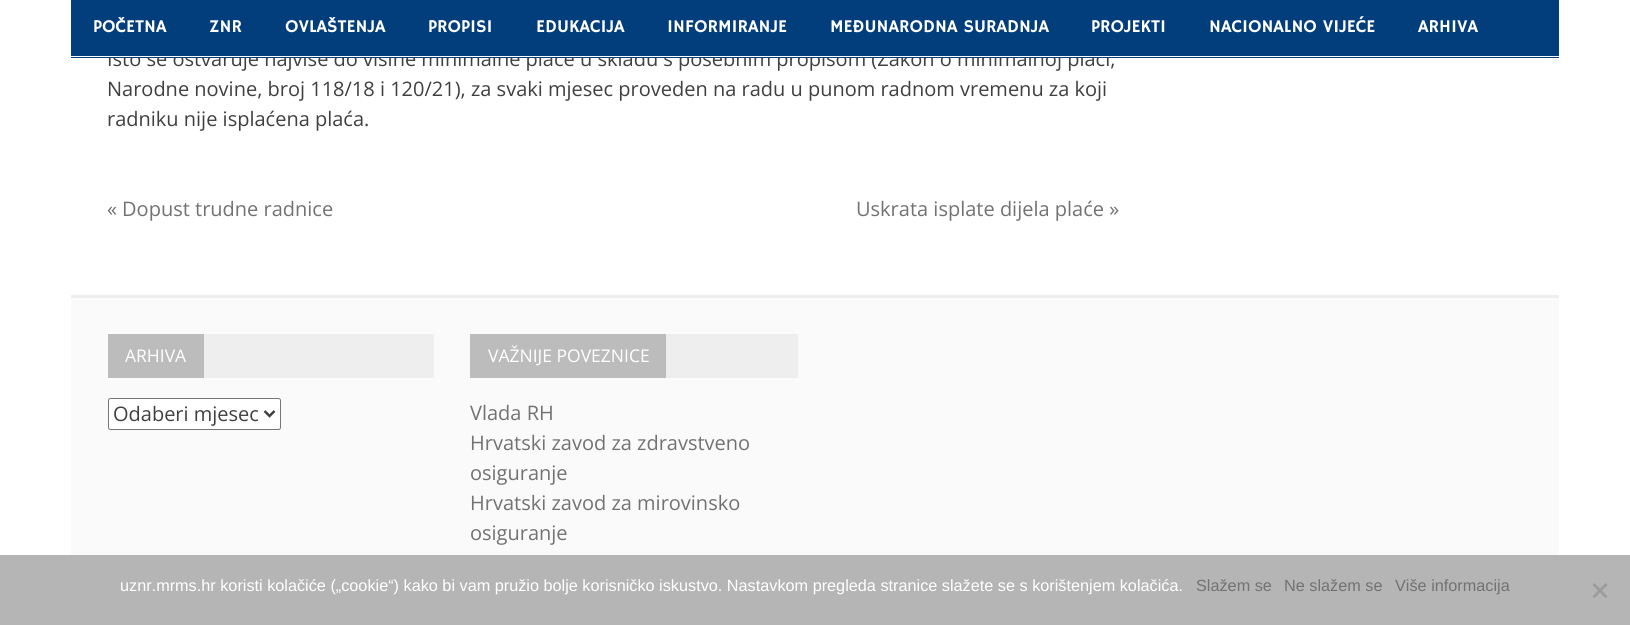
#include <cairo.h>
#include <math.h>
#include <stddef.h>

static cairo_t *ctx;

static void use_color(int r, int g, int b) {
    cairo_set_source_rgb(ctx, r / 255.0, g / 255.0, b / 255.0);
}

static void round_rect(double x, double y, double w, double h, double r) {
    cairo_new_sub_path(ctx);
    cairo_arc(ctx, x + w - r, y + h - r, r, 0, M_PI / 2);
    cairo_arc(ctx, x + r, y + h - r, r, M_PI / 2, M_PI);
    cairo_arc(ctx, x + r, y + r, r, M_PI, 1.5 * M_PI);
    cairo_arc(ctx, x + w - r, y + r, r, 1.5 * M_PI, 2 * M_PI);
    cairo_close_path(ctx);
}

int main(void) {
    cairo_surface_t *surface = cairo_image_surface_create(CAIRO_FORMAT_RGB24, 1630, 625);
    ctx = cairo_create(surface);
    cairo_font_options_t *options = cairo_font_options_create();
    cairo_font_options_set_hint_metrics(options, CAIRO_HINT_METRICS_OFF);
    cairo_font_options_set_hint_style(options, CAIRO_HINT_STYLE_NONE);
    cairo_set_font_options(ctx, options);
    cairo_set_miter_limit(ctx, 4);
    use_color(255, 255, 255);
    cairo_paint(ctx);
    cairo_select_font_face(ctx, "Open Sans", CAIRO_FONT_SLANT_NORMAL, CAIRO_FONT_WEIGHT_NORMAL);
    cairo_set_font_size(ctx, 20);
    use_color(64, 64, 64);
    cairo_move_to(ctx, 107, 66);
    cairo_show_text(ctx, "Isto se ostvaruje najviše do visine minimalne plaće u skladu s posebnim propisom (Zakon o minimalnoj plaći,");
    use_color(3, 62, 124);
    cairo_rectangle(ctx, 71, 0, 1488, 58);
    cairo_fill(ctx);
    use_color(255, 255, 255);
    cairo_rectangle(ctx, 71, 56, 1488, 1);
    cairo_fill(ctx);
    cairo_select_font_face(ctx, "Hammersmith One", CAIRO_FONT_SLANT_NORMAL, CAIRO_FONT_WEIGHT_NORMAL);
    cairo_set_font_size(ctx, 18);
    cairo_move_to(ctx, 93, 32);
    cairo_show_text(ctx, "POČETNA");
    cairo_move_to(ctx, 209, 32);
    cairo_show_text(ctx, "ZNR");
    cairo_move_to(ctx, 285, 32);
    cairo_show_text(ctx, "OVLAŠTENJA");
    cairo_move_to(ctx, 428, 32);
    cairo_show_text(ctx, "PROPISI");
    cairo_move_to(ctx, 536, 32);
    cairo_show_text(ctx, "EDUKACIJA");
    cairo_move_to(ctx, 667, 32);
    cairo_show_text(ctx, "INFORMIRANJE");
    cairo_move_to(ctx, 830, 32);
    cairo_show_text(ctx, "MEĐUNARODNA SURADNJA");
    cairo_move_to(ctx, 1091, 32);
    cairo_show_text(ctx, "PROJEKTI");
    cairo_move_to(ctx, 1209, 32);
    cairo_show_text(ctx, "NACIONALNO VIJEĆE");
    cairo_move_to(ctx, 1418, 32);
    cairo_show_text(ctx, "ARHIVA");
    cairo_select_font_face(ctx, "Open Sans", CAIRO_FONT_SLANT_NORMAL, CAIRO_FONT_WEIGHT_NORMAL);
    cairo_set_font_size(ctx, 20);
    use_color(64, 64, 64);
    cairo_move_to(ctx, 107, 96);
    cairo_show_text(ctx, "Narodne novine, broj 118/18 i 120/21), za svaki mjesec proveden na radu u punom radnom vremenu za koji");
    cairo_move_to(ctx, 107, 126);
    cairo_show_text(ctx, "radniku nije isplaćena plaća.");
    use_color(114, 114, 114);
    cairo_move_to(ctx, 107, 216);
    cairo_show_text(ctx, "« Dopust trudne radnice");
    cairo_move_to(ctx, 856, 216);
    cairo_show_text(ctx, "Uskrata isplate dijela plaće »");
    use_color(250, 250, 250);
    cairo_rectangle(ctx, 71, 298, 1488, 257);
    cairo_fill(ctx);
    use_color(238, 238, 238);
    cairo_rectangle(ctx, 71, 295, 1488, 3);
    cairo_fill(ctx);
    cairo_rectangle(ctx, 204, 334, 230, 44);
    cairo_fill(ctx);
    use_color(188, 188, 188);
    cairo_rectangle(ctx, 108, 334, 96, 44);
    cairo_fill(ctx);
    cairo_set_font_size(ctx, 17.5);
    use_color(255, 255, 255);
    cairo_move_to(ctx, 125, 362);
    cairo_show_text(ctx, "ARHIVA");
    round_rect(108.5, 398.5, 172, 31, 2);
    cairo_fill_preserve(ctx);
    use_color(118, 118, 118);
    cairo_set_line_width(ctx, 1);
    cairo_stroke(ctx);
    cairo_new_path(ctx);
    cairo_move_to(ctx, 264.5, 411);
    cairo_line_to(ctx, 269.5, 416);
    cairo_line_to(ctx, 274.5, 411);
    use_color(64, 64, 64);
    cairo_set_line_width(ctx, 2.5);
    cairo_stroke(ctx);
    cairo_set_font_size(ctx, 20);
    cairo_move_to(ctx, 113, 421);
    cairo_show_text(ctx, "Odaberi mjesec");
    use_color(238, 238, 238);
    cairo_rectangle(ctx, 666, 334, 132, 44);
    cairo_fill(ctx);
    use_color(188, 188, 188);
    cairo_rectangle(ctx, 470, 334, 196, 44);
    cairo_fill(ctx);
    cairo_set_font_size(ctx, 17.5);
    use_color(255, 255, 255);
    cairo_move_to(ctx, 488, 362);
    cairo_show_text(ctx, "VAŽNIJE POVEZNICE");
    cairo_set_font_size(ctx, 20);
    use_color(114, 114, 114);
    cairo_move_to(ctx, 470, 420);
    cairo_show_text(ctx, "Vlada RH");
    cairo_move_to(ctx, 470, 450);
    cairo_show_text(ctx, "Hrvatski zavod za zdravstveno");
    cairo_move_to(ctx, 470, 480);
    cairo_show_text(ctx, "osiguranje");
    cairo_move_to(ctx, 470, 510);
    cairo_show_text(ctx, "Hrvatski zavod za mirovinsko");
    cairo_move_to(ctx, 470, 540);
    cairo_show_text(ctx, "osiguranje");
    use_color(181, 181, 181);
    cairo_rectangle(ctx, 0, 555, 1630, 70);
    cairo_fill(ctx);
    cairo_select_font_face(ctx, "Liberation Sans", CAIRO_FONT_SLANT_NORMAL, CAIRO_FONT_WEIGHT_NORMAL);
    cairo_set_font_size(ctx, 16.25);
    use_color(255, 255, 255);
    cairo_move_to(ctx, 120, 591);
    cairo_show_text(ctx, "uznr.mrms.hr koristi kolačiće („cookie“) kako bi vam pružio bolje korisničko iskustvo. Nastavkom pregleda stranice slažete se s korištenjem kolačića.");
    use_color(114, 114, 114);
    cairo_move_to(ctx, 1196, 591);
    cairo_show_text(ctx, "Slažem se");
    cairo_move_to(ctx, 1284, 591);
    cairo_show_text(ctx, "Ne slažem se");
    cairo_move_to(ctx, 1395, 591);
    cairo_show_text(ctx, "Više informacija");
    use_color(155, 155, 155);
    cairo_new_path(ctx);
    cairo_move_to(ctx, 1605.5, 583);
    cairo_line_to(ctx, 1607.5, 585);
    cairo_line_to(ctx, 1594.5, 598);
    cairo_line_to(ctx, 1592.5, 596.5);
    cairo_close_path(ctx);
    cairo_fill(ctx);
    cairo_new_path(ctx);
    cairo_move_to(ctx, 1592.5, 585);
    cairo_line_to(ctx, 1594.5, 583);
    cairo_line_to(ctx, 1607.5, 596.5);
    cairo_line_to(ctx, 1605.5, 598);
    cairo_close_path(ctx);
    cairo_fill(ctx);
    cairo_surface_write_to_png(surface, "result.png");
    cairo_font_options_destroy(options);
    cairo_destroy(ctx);
    cairo_surface_destroy(surface);
    return 0;
}
